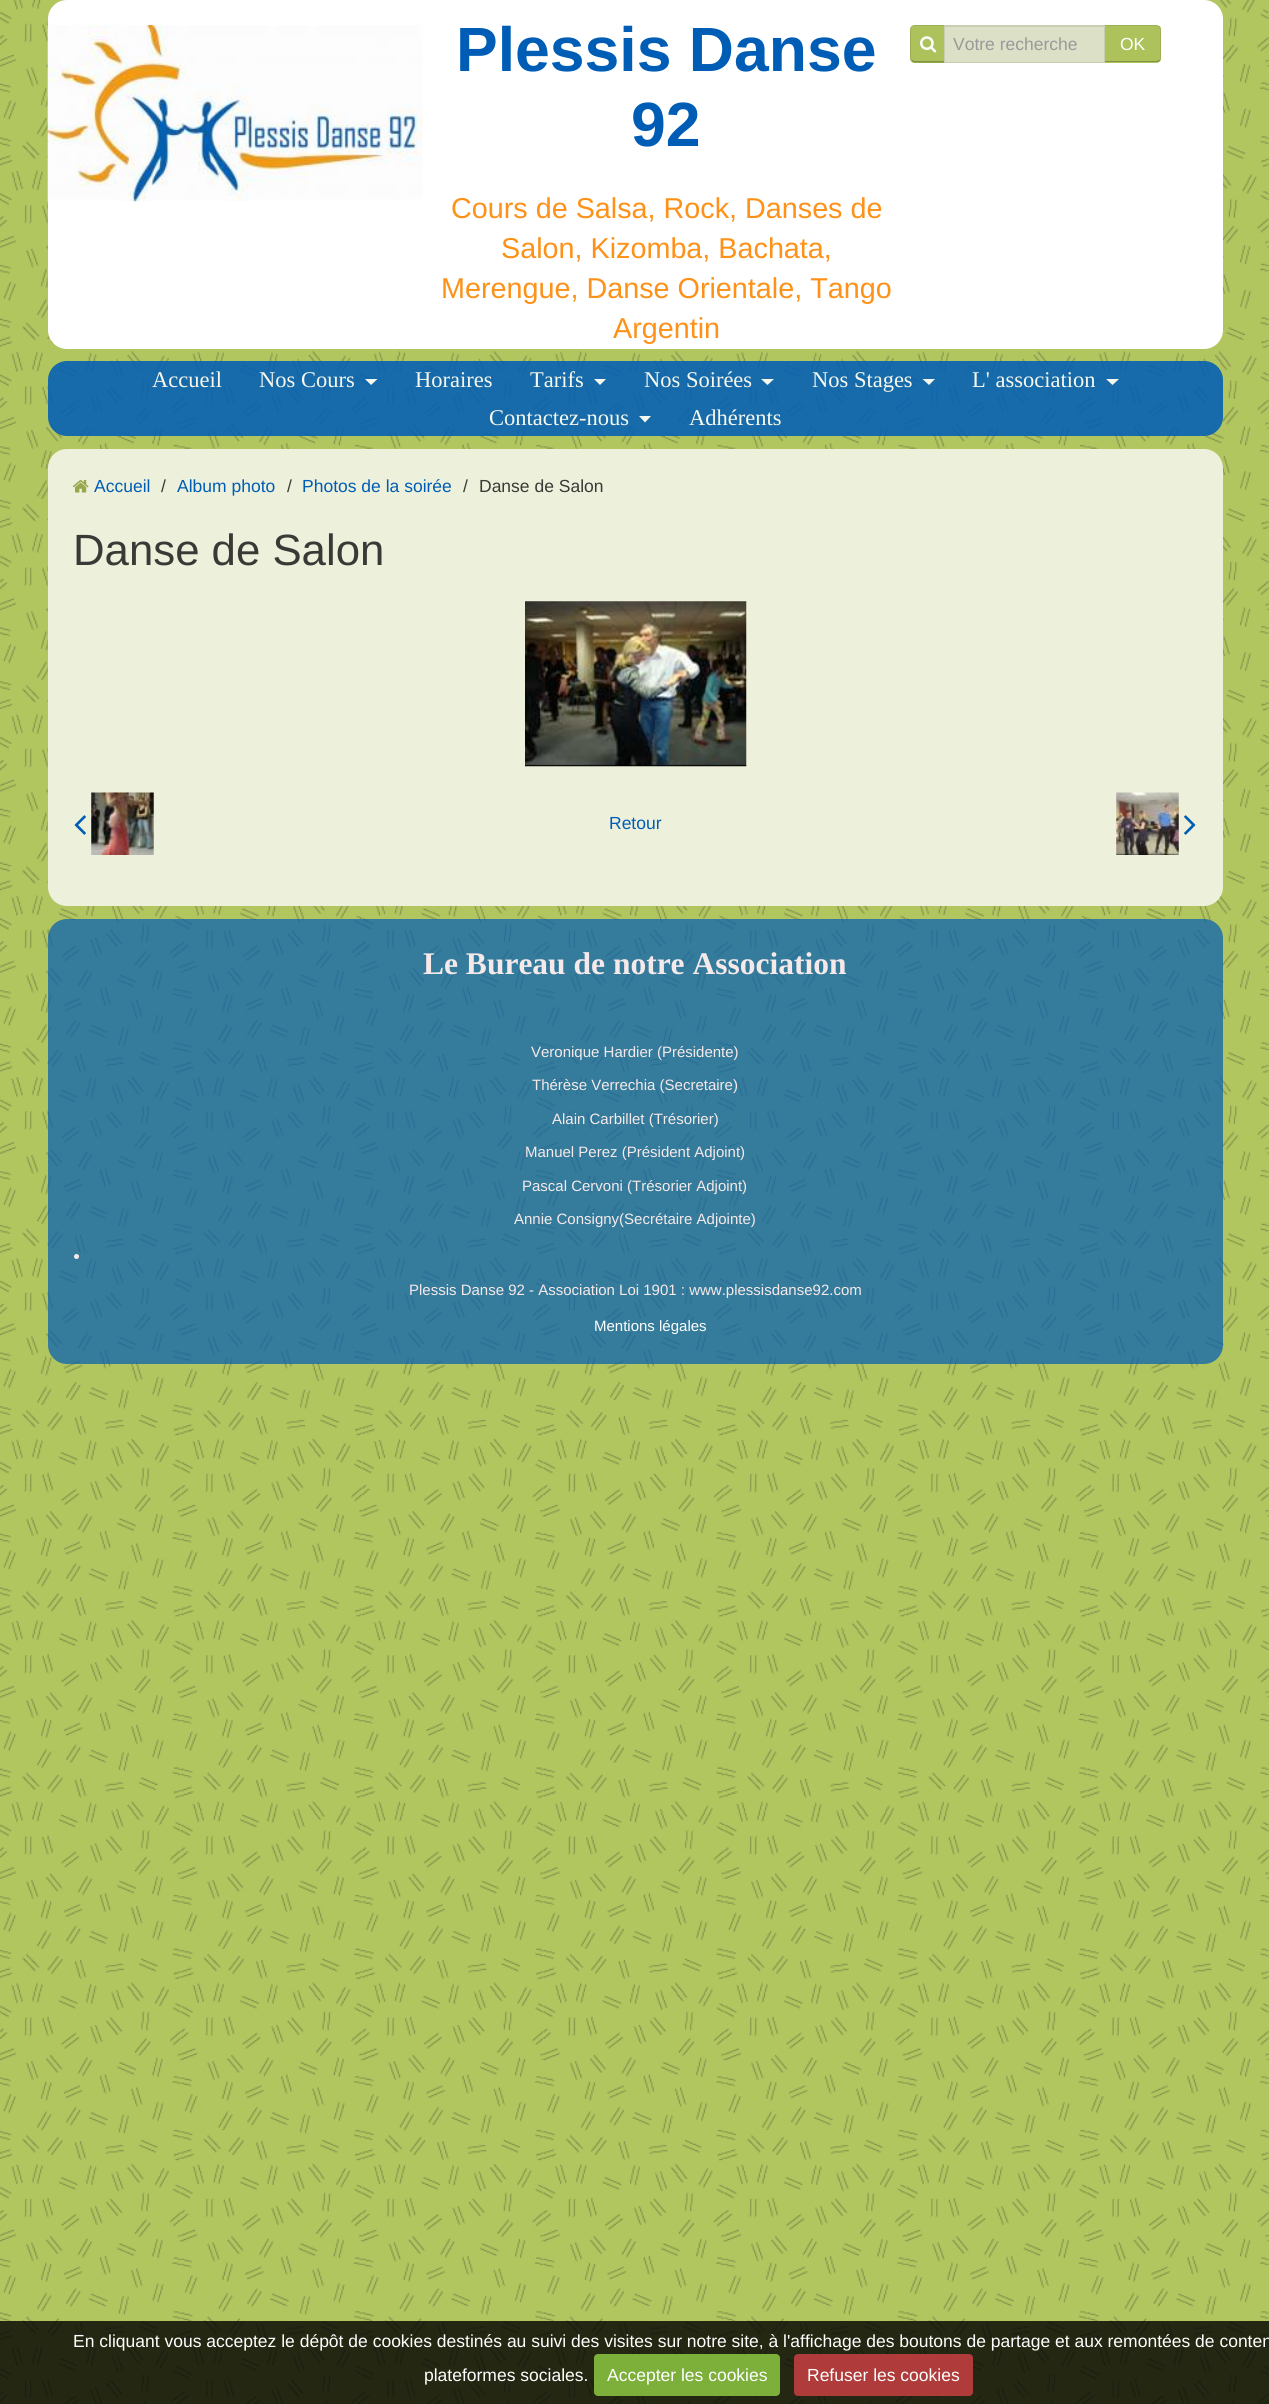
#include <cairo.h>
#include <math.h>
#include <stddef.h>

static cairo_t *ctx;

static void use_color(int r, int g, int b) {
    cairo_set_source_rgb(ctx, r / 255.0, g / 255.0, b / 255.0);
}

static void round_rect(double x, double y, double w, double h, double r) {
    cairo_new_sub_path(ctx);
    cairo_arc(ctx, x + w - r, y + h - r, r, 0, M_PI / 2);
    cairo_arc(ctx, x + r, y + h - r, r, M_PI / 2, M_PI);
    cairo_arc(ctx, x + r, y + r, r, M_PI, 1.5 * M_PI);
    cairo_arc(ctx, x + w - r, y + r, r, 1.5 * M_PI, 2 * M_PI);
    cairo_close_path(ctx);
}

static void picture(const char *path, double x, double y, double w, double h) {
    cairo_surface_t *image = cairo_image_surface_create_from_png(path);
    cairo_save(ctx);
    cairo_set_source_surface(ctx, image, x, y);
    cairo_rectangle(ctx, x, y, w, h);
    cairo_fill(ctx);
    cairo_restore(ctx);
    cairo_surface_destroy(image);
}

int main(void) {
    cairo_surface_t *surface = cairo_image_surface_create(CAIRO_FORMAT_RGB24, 1269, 2404);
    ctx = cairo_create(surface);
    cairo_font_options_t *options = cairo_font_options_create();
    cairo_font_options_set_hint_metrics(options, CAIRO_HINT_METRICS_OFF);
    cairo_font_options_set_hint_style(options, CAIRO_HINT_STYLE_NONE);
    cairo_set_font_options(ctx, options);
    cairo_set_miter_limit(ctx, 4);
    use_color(178, 198, 96);
    cairo_paint(ctx);
    picture("img1.png", 0, 0, 1269, 2404);
    use_color(255, 255, 255);
    round_rect(48, 0, 1175, 349, 19);
    cairo_fill(ctx);
    picture("img2.png", 47, 25, 376, 177);
    cairo_select_font_face(ctx, "Liberation Sans", CAIRO_FONT_SLANT_NORMAL, CAIRO_FONT_WEIGHT_BOLD);
    cairo_set_font_size(ctx, 62.5);
    use_color(0, 93, 181);
    cairo_move_to(ctx, 456, 71);
    cairo_show_text(ctx, "Plessis Danse");
    cairo_move_to(ctx, 631, 146);
    cairo_show_text(ctx, "92");
    cairo_select_font_face(ctx, "Liberation Sans", CAIRO_FONT_SLANT_NORMAL, CAIRO_FONT_WEIGHT_NORMAL);
    cairo_set_font_size(ctx, 28.75);
    use_color(254, 145, 24);
    cairo_move_to(ctx, 451, 218);
    cairo_show_text(ctx, "Cours de Salsa, Rock, Danses de");
    cairo_move_to(ctx, 501, 258);
    cairo_show_text(ctx, "Salon, Kizomba, Bachata,");
    cairo_move_to(ctx, 441, 298);
    cairo_show_text(ctx, "Merengue, Danse Orientale, Tango");
    cairo_move_to(ctx, 613, 338);
    cairo_show_text(ctx, "Argentin");
    use_color(173, 194, 91);
    cairo_new_path(ctx);
    cairo_move_to(ctx, 915, 25);
    cairo_line_to(ctx, 945, 25);
    cairo_line_to(ctx, 945, 63);
    cairo_line_to(ctx, 915, 63);
    cairo_curve_to(ctx, 912, 63, 910, 61, 910, 58);
    cairo_line_to(ctx, 910, 30);
    cairo_curve_to(ctx, 910, 27, 912, 25, 915, 25);
    cairo_close_path(ctx);
    cairo_fill(ctx);
    cairo_set_source_rgba(ctx, 0, 0, 0, 0.1);
    cairo_new_path(ctx);
    cairo_move_to(ctx, 915, 25);
    cairo_curve_to(ctx, 913.5, 25, 912, 25.5, 911.5, 26.5);
    cairo_line_to(ctx, 912, 27);
    cairo_curve_to(ctx, 913, 26.5, 914, 26, 915, 26);
    cairo_line_to(ctx, 944, 26);
    cairo_line_to(ctx, 945, 25);
    cairo_close_path(ctx);
    cairo_fill(ctx);
    use_color(130, 145, 68);
    cairo_new_path(ctx);
    cairo_move_to(ctx, 945, 62.5);
    cairo_line_to(ctx, 943.5, 61);
    cairo_line_to(ctx, 915, 61);
    cairo_curve_to(ctx, 914, 61, 913, 60.5, 912.5, 60);
    cairo_line_to(ctx, 911.5, 61);
    cairo_curve_to(ctx, 912, 62, 913.5, 62.5, 915, 62.5);
    cairo_close_path(ctx);
    cairo_fill(ctx);
    cairo_set_source_rgba(ctx, 0, 0, 0, 0.1);
    cairo_new_path(ctx);
    cairo_move_to(ctx, 910, 30);
    cairo_line_to(ctx, 910, 57.5);
    cairo_curve_to(ctx, 910, 59, 910.5, 60, 911.5, 61);
    cairo_line_to(ctx, 912.5, 60);
    cairo_curve_to(ctx, 911.5, 59.5, 911, 58.5, 911, 57.5);
    cairo_line_to(ctx, 911, 30);
    cairo_curve_to(ctx, 911, 29, 911.5, 28, 912, 27);
    cairo_line_to(ctx, 911.5, 26.5);
    cairo_curve_to(ctx, 910.5, 27, 910, 28.5, 910, 30);
    cairo_close_path(ctx);
    cairo_fill(ctx);
    picture("img3.png", 920, 36, 17, 17);
    use_color(220, 224, 199);
    cairo_rectangle(ctx, 945, 27, 159, 35);
    cairo_fill(ctx);
    use_color(204, 207, 184);
    cairo_rectangle(ctx, 945, 26, 159, 1);
    cairo_fill(ctx);
    use_color(173, 194, 91);
    cairo_new_path(ctx);
    cairo_move_to(ctx, 1104, 25);
    cairo_line_to(ctx, 1156, 25);
    cairo_curve_to(ctx, 1159, 25, 1161, 27, 1161, 30);
    cairo_line_to(ctx, 1161, 58);
    cairo_curve_to(ctx, 1161, 61, 1159, 63, 1156, 63);
    cairo_line_to(ctx, 1104, 63);
    cairo_close_path(ctx);
    cairo_fill(ctx);
    cairo_save(ctx);
    cairo_new_path(ctx);
    cairo_move_to(ctx, 1104, 25);
    cairo_line_to(ctx, 1156, 25);
    cairo_curve_to(ctx, 1159, 25, 1161, 27, 1161, 30);
    cairo_line_to(ctx, 1161, 58);
    cairo_curve_to(ctx, 1161, 61, 1159, 63, 1156, 63);
    cairo_line_to(ctx, 1104, 63);
    cairo_close_path(ctx);
    cairo_clip(ctx);
    cairo_rectangle(ctx, 1105, 26, 56, 35);
    cairo_fill(ctx);
    cairo_restore(ctx);
    cairo_set_source_rgba(ctx, 0, 0, 0, 0.1);
    cairo_new_path(ctx);
    cairo_move_to(ctx, 1104, 25);
    cairo_line_to(ctx, 1105, 26);
    cairo_line_to(ctx, 1156, 26);
    cairo_line_to(ctx, 1159, 27);
    cairo_line_to(ctx, 1160, 27);
    cairo_curve_to(ctx, 1159, 26, 1158, 25, 1156, 25);
    cairo_close_path(ctx);
    cairo_fill(ctx);
    cairo_new_path(ctx);
    cairo_move_to(ctx, 1159.5, 26.5);
    cairo_curve_to(ctx, 1160.5, 27.5, 1161, 28.5, 1161, 30);
    cairo_line_to(ctx, 1161, 58);
    cairo_curve_to(ctx, 1161, 59, 1160.5, 60, 1159.5, 61);
    cairo_line_to(ctx, 1159, 60);
    cairo_curve_to(ctx, 1159.5, 59.5, 1160, 59, 1160, 58);
    cairo_line_to(ctx, 1160, 30);
    cairo_curve_to(ctx, 1160, 29, 1159.5, 28, 1159, 27.5);
    cairo_close_path(ctx);
    cairo_fill(ctx);
    cairo_set_source_rgba(ctx, 0, 0, 0, 0.25);
    cairo_new_path(ctx);
    cairo_move_to(ctx, 1160, 61);
    cairo_curve_to(ctx, 1159, 62, 1157, 62, 1156, 62);
    cairo_line_to(ctx, 1104, 62);
    cairo_line_to(ctx, 1105, 61);
    cairo_line_to(ctx, 1156, 61);
    cairo_line_to(ctx, 1159, 60);
    cairo_close_path(ctx);
    cairo_fill(ctx);
    cairo_rectangle(ctx, 944.5, 25.5, 160, 37);
    use_color(201, 205, 178);
    cairo_set_line_width(ctx, 1);
    cairo_stroke(ctx);
    cairo_set_font_size(ctx, 17.5);
    use_color(153, 153, 153);
    cairo_move_to(ctx, 953, 50);
    cairo_show_text(ctx, "Votre recherche");
    use_color(255, 255, 255);
    cairo_move_to(ctx, 1120, 50);
    cairo_show_text(ctx, "OK");
    cairo_set_source_rgba(ctx, 0, 0.365, 0.71, 0.87);
    round_rect(48, 361, 1175, 75, 19);
    cairo_fill(ctx);
    cairo_select_font_face(ctx, "Liberation Serif", CAIRO_FONT_SLANT_NORMAL, CAIRO_FONT_WEIGHT_NORMAL);
    cairo_set_font_size(ctx, 22.5);
    use_color(246, 248, 237);
    cairo_move_to(ctx, 152, 387);
    cairo_show_text(ctx, "Accueil");
    cairo_move_to(ctx, 259, 387);
    cairo_show_text(ctx, "Nos Cours");
    cairo_new_path(ctx);
    cairo_move_to(ctx, 365, 379);
    cairo_line_to(ctx, 377.5, 379);
    cairo_line_to(ctx, 371, 385);
    cairo_close_path(ctx);
    cairo_fill(ctx);
    cairo_move_to(ctx, 415, 387);
    cairo_show_text(ctx, "Horaires");
    cairo_move_to(ctx, 530, 387);
    cairo_show_text(ctx, "Tarifs");
    cairo_new_path(ctx);
    cairo_move_to(ctx, 594, 379);
    cairo_line_to(ctx, 606, 379);
    cairo_line_to(ctx, 600, 385);
    cairo_close_path(ctx);
    cairo_fill(ctx);
    cairo_move_to(ctx, 644, 387);
    cairo_show_text(ctx, "Nos Soirées");
    cairo_new_path(ctx);
    cairo_move_to(ctx, 761, 379);
    cairo_line_to(ctx, 774, 379);
    cairo_line_to(ctx, 767.5, 385);
    cairo_close_path(ctx);
    cairo_fill(ctx);
    cairo_move_to(ctx, 812, 387);
    cairo_show_text(ctx, "Nos Stages");
    cairo_new_path(ctx);
    cairo_move_to(ctx, 922.5, 379);
    cairo_line_to(ctx, 935, 379);
    cairo_line_to(ctx, 929, 385);
    cairo_close_path(ctx);
    cairo_fill(ctx);
    cairo_move_to(ctx, 972, 387);
    cairo_show_text(ctx, "L' association");
    cairo_new_path(ctx);
    cairo_move_to(ctx, 1106, 379);
    cairo_line_to(ctx, 1119, 379);
    cairo_line_to(ctx, 1112.5, 385);
    cairo_close_path(ctx);
    cairo_fill(ctx);
    cairo_move_to(ctx, 489, 425);
    cairo_show_text(ctx, "Contactez-nous");
    cairo_new_path(ctx);
    cairo_move_to(ctx, 639, 416);
    cairo_line_to(ctx, 651, 416);
    cairo_line_to(ctx, 645, 422.5);
    cairo_close_path(ctx);
    cairo_fill(ctx);
    cairo_move_to(ctx, 689, 425);
    cairo_show_text(ctx, "Adhérents");
    use_color(237, 240, 219);
    round_rect(48, 449, 1175, 457, 19);
    cairo_fill(ctx);
    picture("img4.png", 72, 480, 17, 13);
    cairo_select_font_face(ctx, "Liberation Sans", CAIRO_FONT_SLANT_NORMAL, CAIRO_FONT_WEIGHT_NORMAL);
    cairo_set_font_size(ctx, 17.5);
    use_color(0, 93, 181);
    cairo_move_to(ctx, 94, 492);
    cairo_show_text(ctx, "Accueil");
    use_color(57, 58, 54);
    cairo_move_to(ctx, 161, 492);
    cairo_show_text(ctx, "/");
    use_color(0, 93, 181);
    cairo_move_to(ctx, 177, 492);
    cairo_show_text(ctx, "Album photo");
    use_color(57, 58, 54);
    cairo_move_to(ctx, 287, 492);
    cairo_show_text(ctx, "/");
    use_color(0, 93, 181);
    cairo_move_to(ctx, 302, 492);
    cairo_show_text(ctx, "Photos de la soirée");
    use_color(57, 58, 54);
    cairo_move_to(ctx, 463, 492);
    cairo_show_text(ctx, "/");
    cairo_move_to(ctx, 479, 492);
    cairo_show_text(ctx, "Danse de Salon");
    cairo_set_font_size(ctx, 43.75);
    cairo_move_to(ctx, 73, 565);
    cairo_show_text(ctx, "Danse de Salon");
    picture("img5.png", 525, 601, 222, 166);
    picture("img6.png", 74, 815, 12, 20);
    picture("img7.png", 91, 792, 63, 63);
    cairo_set_font_size(ctx, 17.5);
    use_color(0, 93, 181);
    cairo_move_to(ctx, 609, 829);
    cairo_show_text(ctx, "Retour");
    picture("img8.png", 1116, 792, 63, 63);
    picture("img9.png", 1184, 815, 12, 20);
    cairo_set_source_rgba(ctx, 0, 0.365, 0.71, 0.7);
    round_rect(48, 919, 1175, 445, 19);
    cairo_fill(ctx);
    cairo_select_font_face(ctx, "Liberation Serif", CAIRO_FONT_SLANT_NORMAL, CAIRO_FONT_WEIGHT_BOLD);
    cairo_set_font_size(ctx, 31.5);
    use_color(246, 233, 233);
    cairo_move_to(ctx, 423, 974);
    cairo_show_text(ctx, "Le Bureau de notre Association");
    cairo_select_font_face(ctx, "Liberation Sans", CAIRO_FONT_SLANT_NORMAL, CAIRO_FONT_WEIGHT_NORMAL);
    cairo_set_font_size(ctx, 15);
    cairo_move_to(ctx, 531, 1057);
    cairo_show_text(ctx, "Veronique Hardier (Présidente)");
    cairo_move_to(ctx, 532, 1090);
    cairo_show_text(ctx, "Thérèse Verrechia (Secretaire)");
    cairo_move_to(ctx, 552, 1124);
    cairo_show_text(ctx, "Alain Carbillet (Trésorier)");
    cairo_move_to(ctx, 525, 1157);
    cairo_show_text(ctx, "Manuel Perez (Président Adjoint)");
    cairo_move_to(ctx, 522, 1191);
    cairo_show_text(ctx, "Pascal Cervoni (Trésorier Adjoint)");
    cairo_move_to(ctx, 514, 1224);
    cairo_show_text(ctx, "Annie Consigny(Secrétaire Adjointe)");
    cairo_new_path(ctx);
    cairo_arc(ctx, 76.5, 1256.5, 2.5, 0, 2 * M_PI);
    cairo_fill(ctx);
    cairo_move_to(ctx, 409, 1295);
    cairo_show_text(ctx, "Plessis Danse 92 - Association Loi 1901 : www.plessisdanse92.com");
    use_color(255, 255, 255);
    cairo_move_to(ctx, 594, 1331);
    cairo_show_text(ctx, "Mentions légales");
    cairo_set_source_rgba(ctx, 0, 0, 0, 0.8);
    cairo_rectangle(ctx, 0, 2321, 1269, 83);
    cairo_fill(ctx);
    cairo_set_font_size(ctx, 17.5);
    use_color(255, 255, 255);
    cairo_move_to(ctx, 73, 2347);
    cairo_show_text(ctx, "En cliquant vous acceptez le dépôt de cookies destinés au suivi des visites sur notre site, à l'affichage des boutons de partage et aux remontées de conten");
    cairo_move_to(ctx, 424, 2381);
    cairo_show_text(ctx, "plateformes sociales.");
    use_color(125, 175, 59);
    round_rect(594, 2354, 186, 42, 4);
    cairo_fill(ctx);
    use_color(255, 255, 255);
    cairo_move_to(ctx, 607, 2381);
    cairo_show_text(ctx, "Accepter les cookies");
    use_color(175, 59, 59);
    round_rect(794, 2354, 179, 42, 4);
    cairo_fill(ctx);
    use_color(255, 255, 255);
    cairo_move_to(ctx, 807, 2381);
    cairo_show_text(ctx, "Refuser les cookies");
    cairo_surface_write_to_png(surface, "result.png");
    cairo_font_options_destroy(options);
    cairo_destroy(ctx);
    cairo_surface_destroy(surface);
    return 0;
}
